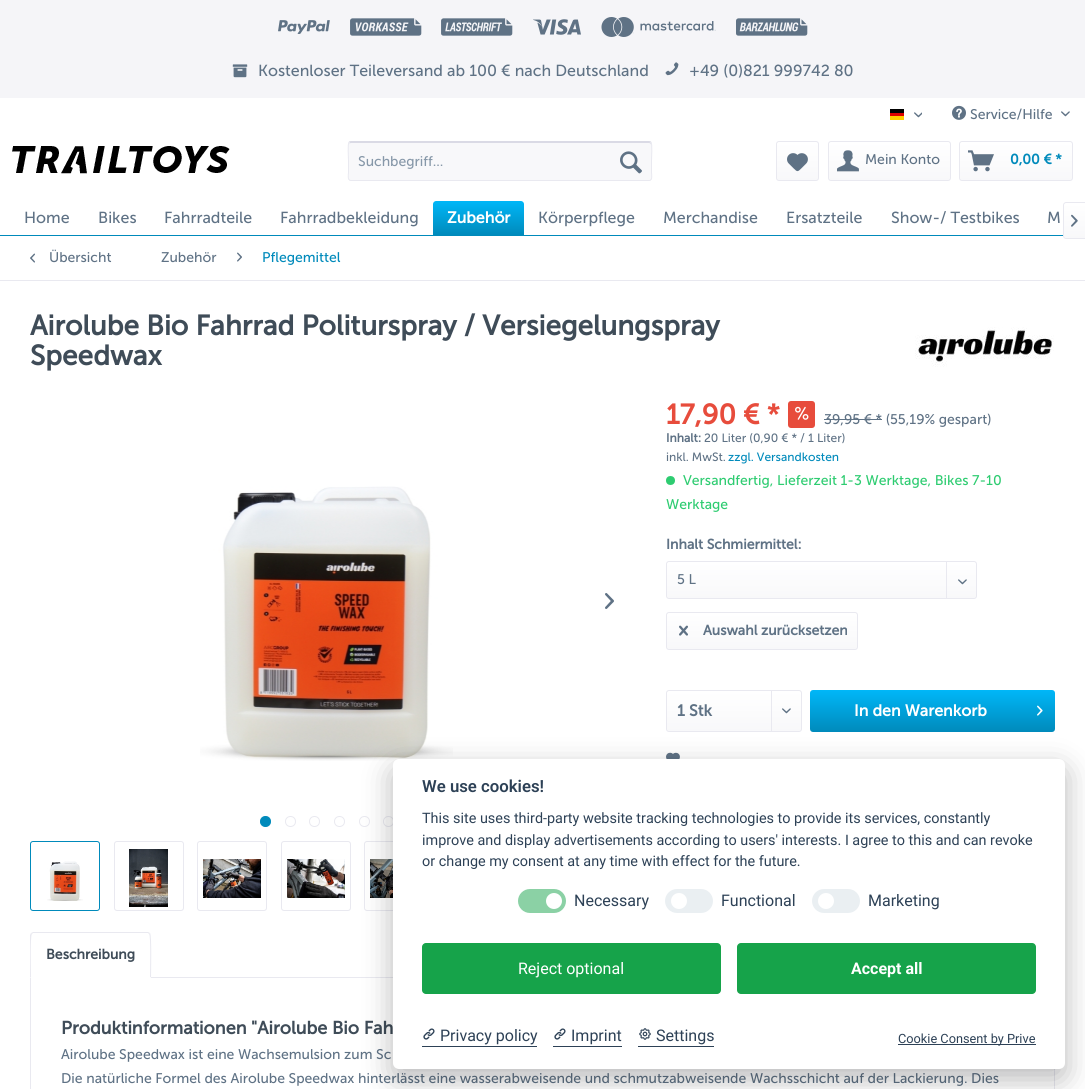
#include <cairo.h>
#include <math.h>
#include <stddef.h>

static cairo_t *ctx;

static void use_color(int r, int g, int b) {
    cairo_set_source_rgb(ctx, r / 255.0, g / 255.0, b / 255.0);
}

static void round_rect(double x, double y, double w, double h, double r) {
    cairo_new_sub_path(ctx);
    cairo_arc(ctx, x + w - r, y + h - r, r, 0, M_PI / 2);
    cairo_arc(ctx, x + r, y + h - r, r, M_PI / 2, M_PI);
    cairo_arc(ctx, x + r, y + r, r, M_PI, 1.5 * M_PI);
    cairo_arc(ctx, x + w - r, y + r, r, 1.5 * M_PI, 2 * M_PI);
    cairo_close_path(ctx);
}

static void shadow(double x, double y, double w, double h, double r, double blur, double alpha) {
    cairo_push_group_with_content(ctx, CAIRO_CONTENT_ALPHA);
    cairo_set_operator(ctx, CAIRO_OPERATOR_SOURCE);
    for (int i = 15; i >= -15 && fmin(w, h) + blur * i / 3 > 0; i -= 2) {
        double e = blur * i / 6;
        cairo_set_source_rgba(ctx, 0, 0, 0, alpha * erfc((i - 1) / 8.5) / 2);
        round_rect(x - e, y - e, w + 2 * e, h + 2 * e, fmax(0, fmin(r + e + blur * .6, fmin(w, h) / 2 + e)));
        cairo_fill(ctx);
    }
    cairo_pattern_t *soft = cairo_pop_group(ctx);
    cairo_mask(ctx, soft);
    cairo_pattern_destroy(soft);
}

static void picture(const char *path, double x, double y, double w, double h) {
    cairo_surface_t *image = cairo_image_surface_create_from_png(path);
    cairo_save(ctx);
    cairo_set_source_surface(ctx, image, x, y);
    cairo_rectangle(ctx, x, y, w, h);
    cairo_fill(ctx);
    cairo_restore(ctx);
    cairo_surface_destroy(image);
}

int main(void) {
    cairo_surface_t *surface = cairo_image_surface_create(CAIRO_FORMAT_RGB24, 1085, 1089);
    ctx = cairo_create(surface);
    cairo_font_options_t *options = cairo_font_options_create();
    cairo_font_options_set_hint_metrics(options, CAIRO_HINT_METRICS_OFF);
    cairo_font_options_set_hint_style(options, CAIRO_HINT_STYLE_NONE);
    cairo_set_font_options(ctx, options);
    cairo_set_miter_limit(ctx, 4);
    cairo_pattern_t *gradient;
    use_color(255, 255, 255);
    cairo_paint(ctx);
    use_color(245, 245, 248);
    cairo_rectangle(ctx, 0, 0, 1085, 98);
    cairo_fill(ctx);
    picture("img1.png", 278, 20, 52, 14);
    picture("img2.png", 350, 18, 72, 18);
    picture("img3.png", 441, 18, 72, 18);
    picture("img4.png", 533, 19, 48, 16);
    picture("img5.png", 601, 17, 115, 20);
    picture("img6.png", 736, 18, 72, 18);
    picture("img7.png", 232, 64, 16, 14);
    cairo_select_font_face(ctx, "Museo Sans", CAIRO_FONT_SLANT_NORMAL, CAIRO_FONT_WEIGHT_NORMAL);
    cairo_set_font_size(ctx, 16);
    use_color(95, 114, 133);
    cairo_move_to(ctx, 258, 76);
    cairo_show_text(ctx, "Kostenloser Teileversand ab 100 € nach Deutschland");
    picture("img8.png", 665, 62, 14, 14);
    cairo_move_to(ctx, 689, 76);
    cairo_show_text(ctx, "+49 (0)821 999742 80");
    use_color(0, 0, 0);
    cairo_rectangle(ctx, 890, 109, 14, 4);
    cairo_fill(ctx);
    use_color(221, 0, 0);
    cairo_rectangle(ctx, 890, 113, 14, 3);
    cairo_fill(ctx);
    use_color(255, 206, 0);
    cairo_rectangle(ctx, 890, 116, 14, 4);
    cairo_fill(ctx);
    picture("img9.png", 914, 112, 8, 6);
    picture("img10.png", 952, 105, 14, 15);
    cairo_set_font_size(ctx, 14);
    use_color(95, 114, 133);
    cairo_move_to(ctx, 970, 119);
    cairo_show_text(ctx, "Service/Hilfe");
    picture("img11.png", 1061, 111, 9, 6);
    picture("img12.png", 12, 146, 218, 28);
    use_color(248, 248, 250);
    round_rect(348, 141, 304, 40, 3);
    cairo_fill(ctx);
    use_color(218, 218, 229);
    cairo_new_path(ctx);
    cairo_move_to(ctx, 351, 143);
    cairo_line_to(ctx, 649, 143);
    cairo_curve_to(ctx, 650, 143, 651, 144, 651, 145);
    cairo_curve_to(ctx, 651, 144, 651, 142, 649, 142);
    cairo_line_to(ctx, 350, 142);
    cairo_line_to(ctx, 349, 145);
    cairo_curve_to(ctx, 349, 144, 350, 143, 351, 143);
    cairo_close_path(ctx);
    cairo_fill(ctx);
    cairo_new_path(ctx);
    cairo_move_to(ctx, 349, 142);
    cairo_line_to(ctx, 351, 141.5);
    cairo_line_to(ctx, 649, 141.5);
    cairo_line_to(ctx, 651, 142);
    cairo_set_line_width(ctx, 1);
    cairo_stroke(ctx);
    cairo_new_path(ctx);
    cairo_move_to(ctx, 651, 142);
    cairo_curve_to(ctx, 652.5, 144, 651.5, 158, 651.5, 161);
    cairo_line_to(ctx, 651.5, 172.5);
    cairo_curve_to(ctx, 651.5, 174, 653, 180.5, 649, 180.5);
    cairo_line_to(ctx, 351, 180.5);
    cairo_curve_to(ctx, 347, 180.5, 348.5, 174, 348.5, 172.5);
    cairo_line_to(ctx, 348.5, 161);
    cairo_curve_to(ctx, 348.5, 158, 347.5, 144, 349, 142);
    use_color(233, 233, 240);
    cairo_stroke(ctx);
    use_color(135, 152, 169);
    cairo_move_to(ctx, 358, 166);
    cairo_show_text(ctx, "Suchbegriff...");
    picture("img13.png", 620, 151, 22, 23);
    gradient = cairo_pattern_create_linear(798, 142, 798, 180);
    cairo_pattern_add_color_stop_rgba(gradient, 0, 1, 1, 1, 1);
    cairo_pattern_add_color_stop_rgba(gradient, 1, 0.973, 0.973, 0.98, 1);
    cairo_set_source(ctx, gradient);
    cairo_pattern_destroy(gradient);
    round_rect(777, 142, 41, 38, 2);
    cairo_fill(ctx);
    round_rect(776.5, 141.5, 42, 39, 2.5);
    use_color(233, 233, 240);
    cairo_stroke(ctx);
    picture("img14.png", 787, 153, 21, 19);
    gradient = cairo_pattern_create_linear(890, 142, 890, 180);
    cairo_pattern_add_color_stop_rgba(gradient, 0, 1, 1, 1, 1);
    cairo_pattern_add_color_stop_rgba(gradient, 1, 0.973, 0.973, 0.98, 1);
    cairo_set_source(ctx, gradient);
    cairo_pattern_destroy(gradient);
    round_rect(829, 142, 121, 38, 2);
    cairo_fill(ctx);
    round_rect(828.5, 141.5, 122, 39, 2.5);
    use_color(233, 233, 240);
    cairo_stroke(ctx);
    picture("img15.png", 837, 150, 22, 22);
    use_color(95, 114, 133);
    cairo_move_to(ctx, 865, 164);
    cairo_show_text(ctx, "Mein Konto");
    gradient = cairo_pattern_create_linear(1016, 142, 1016, 180);
    cairo_pattern_add_color_stop_rgba(gradient, 0, 1, 1, 1, 1);
    cairo_pattern_add_color_stop_rgba(gradient, 1, 0.973, 0.973, 0.98, 1);
    cairo_set_source(ctx, gradient);
    cairo_pattern_destroy(gradient);
    round_rect(960, 142, 112, 38, 2);
    cairo_fill(ctx);
    round_rect(959.5, 141.5, 113, 39, 2.5);
    use_color(233, 233, 240);
    cairo_stroke(ctx);
    picture("img16.png", 968, 150, 26, 22);
    cairo_select_font_face(ctx, "Museo Sans", CAIRO_FONT_SLANT_NORMAL, CAIRO_FONT_WEIGHT_BOLD);
    use_color(0, 138, 187);
    cairo_move_to(ctx, 1010, 164);
    cairo_show_text(ctx, "0,00 € *");
    cairo_rectangle(ctx, 0, 235, 1063, 1);
    cairo_fill(ctx);
    cairo_select_font_face(ctx, "Museo Sans", CAIRO_FONT_SLANT_NORMAL, CAIRO_FONT_WEIGHT_NORMAL);
    cairo_set_font_size(ctx, 16);
    use_color(95, 114, 133);
    cairo_move_to(ctx, 24, 223);
    cairo_show_text(ctx, "Home");
    cairo_move_to(ctx, 98, 223);
    cairo_show_text(ctx, "Bikes");
    cairo_move_to(ctx, 164, 223);
    cairo_show_text(ctx, "Fahrradteile");
    cairo_move_to(ctx, 280, 223);
    cairo_show_text(ctx, "Fahrradbekleidung");
    gradient = cairo_pattern_create_linear(479, 201, 479, 235);
    cairo_pattern_add_color_stop_rgba(gradient, 0, 0, 0.718, 0.973, 1);
    cairo_pattern_add_color_stop_rgba(gradient, 1, 0, 0.541, 0.733, 1);
    cairo_set_source(ctx, gradient);
    cairo_pattern_destroy(gradient);
    cairo_new_path(ctx);
    cairo_move_to(ctx, 436, 201);
    cairo_line_to(ctx, 521, 201);
    cairo_curve_to(ctx, 522.5, 201, 524, 202.5, 524, 204);
    cairo_line_to(ctx, 524, 235);
    cairo_line_to(ctx, 433, 235);
    cairo_line_to(ctx, 433, 204);
    cairo_curve_to(ctx, 433, 202.5, 434.5, 201, 436, 201);
    cairo_close_path(ctx);
    cairo_fill(ctx);
    cairo_select_font_face(ctx, "Museo Sans", CAIRO_FONT_SLANT_NORMAL, CAIRO_FONT_WEIGHT_BOLD);
    use_color(255, 255, 255);
    cairo_move_to(ctx, 447, 223);
    cairo_show_text(ctx, "Zubehör");
    cairo_select_font_face(ctx, "Museo Sans", CAIRO_FONT_SLANT_NORMAL, CAIRO_FONT_WEIGHT_NORMAL);
    use_color(95, 114, 133);
    cairo_move_to(ctx, 538, 223);
    cairo_show_text(ctx, "Körperpflege");
    cairo_move_to(ctx, 663, 223);
    cairo_show_text(ctx, "Merchandise");
    cairo_move_to(ctx, 786, 223);
    cairo_show_text(ctx, "Ersatzteile");
    cairo_move_to(ctx, 891, 223);
    cairo_show_text(ctx, "Show-/ Testbikes");
    cairo_move_to(ctx, 1047, 223);
    cairo_show_text(ctx, "M");
    gradient = cairo_pattern_create_linear(1075, 203, 1075, 238);
    cairo_pattern_add_color_stop_rgba(gradient, 0, 1, 1, 1, 1);
    cairo_pattern_add_color_stop_rgba(gradient, 1, 0.973, 0.973, 0.98, 1);
    cairo_set_source(ctx, gradient);
    cairo_pattern_destroy(gradient);
    cairo_new_path(ctx);
    cairo_move_to(ctx, 1066, 203);
    cairo_line_to(ctx, 1085, 203);
    cairo_line_to(ctx, 1085, 238);
    cairo_line_to(ctx, 1066, 238);
    cairo_curve_to(ctx, 1065, 238, 1064, 237, 1064, 236);
    cairo_line_to(ctx, 1064, 205);
    cairo_curve_to(ctx, 1064, 204, 1065, 203, 1066, 203);
    cairo_close_path(ctx);
    cairo_fill(ctx);
    use_color(233, 233, 240);
    cairo_set_fill_rule(ctx, CAIRO_FILL_RULE_EVEN_ODD);
    cairo_new_path(ctx);
    cairo_move_to(ctx, 1066, 202);
    cairo_line_to(ctx, 1085, 202);
    cairo_line_to(ctx, 1085, 239);
    cairo_line_to(ctx, 1066, 239);
    cairo_curve_to(ctx, 1064.5, 239, 1063, 237.5, 1063, 236);
    cairo_line_to(ctx, 1063, 205);
    cairo_curve_to(ctx, 1063, 203.5, 1064.5, 202, 1066, 202);
    cairo_close_path(ctx);
    cairo_move_to(ctx, 1066, 203);
    cairo_line_to(ctx, 1085, 203);
    cairo_line_to(ctx, 1085, 238);
    cairo_line_to(ctx, 1066, 238);
    cairo_curve_to(ctx, 1065, 238, 1064, 237, 1064, 236);
    cairo_line_to(ctx, 1064, 205);
    cairo_curve_to(ctx, 1064, 204, 1065, 203, 1066, 203);
    cairo_close_path(ctx);
    cairo_fill(ctx);
    picture("img17.png", 1071, 214, 7, 13);
    cairo_rectangle(ctx, 0, 280, 1085, 1);
    cairo_fill(ctx);
    picture("img18.png", 30, 253, 5, 10);
    cairo_set_font_size(ctx, 14);
    use_color(95, 114, 133);
    cairo_move_to(ctx, 49, 262);
    cairo_show_text(ctx, "Übersicht");
    cairo_move_to(ctx, 161, 262);
    cairo_show_text(ctx, "Zubehör");
    picture("img19.png", 237, 252, 5, 10);
    use_color(0, 138, 187);
    cairo_move_to(ctx, 262, 262);
    cairo_show_text(ctx, "Pflegemittel");
    cairo_select_font_face(ctx, "Museo Sans", CAIRO_FONT_SLANT_NORMAL, CAIRO_FONT_WEIGHT_BOLD);
    cairo_set_font_size(ctx, 28);
    use_color(63, 76, 88);
    cairo_move_to(ctx, 30, 335);
    cairo_show_text(ctx, "Airolube Bio Fahrrad Politurspray / Versiegelungspray");
    cairo_move_to(ctx, 30, 365);
    cairo_show_text(ctx, "Speedwax");
    picture("img20.png", 915, 327, 139, 40);
    picture("img21.png", 200, 486, 253, 275);
    picture("img22.png", 605, 593, 9, 16);
    use_color(0, 138, 187);
    cairo_arc(ctx, 265.5, 821.5, 5, 0, 2 * M_PI);
    cairo_fill_preserve(ctx);
    cairo_stroke(ctx);
    cairo_arc(ctx, 290.5, 821.5, 5, 0, 2 * M_PI);
    use_color(233, 233, 240);
    cairo_stroke(ctx);
    cairo_arc(ctx, 314.5, 821.5, 5, 0, 2 * M_PI);
    cairo_stroke(ctx);
    cairo_arc(ctx, 339.5, 821.5, 5, 0, 2 * M_PI);
    cairo_stroke(ctx);
    cairo_arc(ctx, 364.5, 821.5, 5, 0, 2 * M_PI);
    cairo_stroke(ctx);
    cairo_arc(ctx, 388.5, 821.5, 5, 0, 2 * M_PI);
    cairo_stroke(ctx);
    round_rect(30.5, 841.5, 69, 69, 2.5);
    use_color(0, 138, 187);
    cairo_stroke(ctx);
    picture("img23.png", 47, 861, 36, 40);
    round_rect(114.5, 841.5, 69, 69, 2.5);
    use_color(233, 233, 240);
    cairo_stroke(ctx);
    picture("img24.png", 129, 849, 39, 58);
    round_rect(197.5, 841.5, 69, 69, 2.5);
    cairo_stroke(ctx);
    picture("img25.png", 203, 859, 58, 39);
    round_rect(281.5, 841.5, 69, 69, 2.5);
    cairo_stroke(ctx);
    picture("img26.png", 287, 859, 58, 39);
    round_rect(364.5, 841.5, 69, 69, 2.5);
    cairo_stroke(ctx);
    picture("img27.png", 370, 859, 23, 39);
    use_color(231, 76, 60);
    cairo_move_to(ctx, 666, 424);
    cairo_show_text(ctx, "17,90 € *");
    round_rect(788, 401, 27, 27, 3);
    cairo_fill(ctx);
    picture("img28.png", 795, 406, 14, 14);
    cairo_select_font_face(ctx, "Museo Sans", CAIRO_FONT_SLANT_NORMAL, CAIRO_FONT_WEIGHT_NORMAL);
    cairo_set_font_size(ctx, 14);
    use_color(95, 114, 133);
    cairo_move_to(ctx, 824, 424);
    cairo_show_text(ctx, "39,95 € * (55,19% gespart)");
    cairo_rectangle(ctx, 824, 419, 58, 1);
    cairo_fill(ctx);
    cairo_select_font_face(ctx, "Museo Sans", CAIRO_FONT_SLANT_NORMAL, CAIRO_FONT_WEIGHT_BOLD);
    cairo_set_font_size(ctx, 12);
    cairo_move_to(ctx, 666, 442);
    cairo_show_text(ctx, "Inhalt:");
    cairo_select_font_face(ctx, "Museo Sans", CAIRO_FONT_SLANT_NORMAL, CAIRO_FONT_WEIGHT_NORMAL);
    cairo_move_to(ctx, 704, 442);
    cairo_show_text(ctx, "20 Liter (0,90 € * / 1 Liter)");
    cairo_move_to(ctx, 666, 461);
    cairo_show_text(ctx, "inkl. MwSt.");
    use_color(0, 138, 187);
    cairo_move_to(ctx, 728, 461);
    cairo_show_text(ctx, "zzgl. Versandkosten");
    use_color(46, 204, 113);
    cairo_new_path(ctx);
    cairo_arc(ctx, 670.5, 480.5, 4.5, 0, 2 * M_PI);
    cairo_fill(ctx);
    cairo_set_font_size(ctx, 14);
    cairo_move_to(ctx, 683, 485);
    cairo_show_text(ctx, "Versandfertig, Lieferzeit 1-3 Werktage, Bikes 7-10");
    cairo_move_to(ctx, 666, 509);
    cairo_show_text(ctx, "Werktage");
    cairo_select_font_face(ctx, "Museo Sans", CAIRO_FONT_SLANT_NORMAL, CAIRO_FONT_WEIGHT_BOLD);
    use_color(95, 114, 133);
    cairo_move_to(ctx, 666, 549);
    cairo_show_text(ctx, "Inhalt Schmiermittel:");
    gradient = cairo_pattern_create_linear(822, 562, 822, 598);
    cairo_pattern_add_color_stop_rgba(gradient, 0, 1, 1, 1, 1);
    cairo_pattern_add_color_stop_rgba(gradient, 1, 0.973, 0.973, 0.98, 1);
    cairo_set_source(ctx, gradient);
    cairo_pattern_destroy(gradient);
    round_rect(667, 562, 309, 36, 2);
    cairo_fill(ctx);
    round_rect(666.5, 561.5, 310, 37, 2.5);
    use_color(233, 233, 240);
    cairo_stroke(ctx);
    cairo_select_font_face(ctx, "Museo Sans", CAIRO_FONT_SLANT_NORMAL, CAIRO_FONT_WEIGHT_NORMAL);
    use_color(95, 114, 133);
    cairo_move_to(ctx, 677, 584);
    cairo_show_text(ctx, "5 L");
    use_color(233, 233, 240);
    cairo_rectangle(ctx, 946, 562, 1, 36);
    cairo_fill(ctx);
    picture("img29.png", 958, 579, 9, 6);
    gradient = cairo_pattern_create_linear(762, 613, 762, 649);
    cairo_pattern_add_color_stop_rgba(gradient, 0, 1, 1, 1, 1);
    cairo_pattern_add_color_stop_rgba(gradient, 1, 0.973, 0.973, 0.98, 1);
    cairo_set_source(ctx, gradient);
    cairo_pattern_destroy(gradient);
    round_rect(667, 613, 190, 36, 2);
    cairo_fill(ctx);
    round_rect(666.5, 612.5, 191, 37, 2.5);
    use_color(233, 233, 240);
    cairo_stroke(ctx);
    picture("img30.png", 679, 625, 9, 11);
    cairo_select_font_face(ctx, "Museo Sans", CAIRO_FONT_SLANT_NORMAL, CAIRO_FONT_WEIGHT_BOLD);
    use_color(95, 114, 133);
    cairo_move_to(ctx, 703, 635);
    cairo_show_text(ctx, "Auswahl zurücksetzen");
    gradient = cairo_pattern_create_linear(734, 691, 734, 731);
    cairo_pattern_add_color_stop_rgba(gradient, 0, 1, 1, 1, 1);
    cairo_pattern_add_color_stop_rgba(gradient, 1, 0.973, 0.973, 0.98, 1);
    cairo_set_source(ctx, gradient);
    cairo_pattern_destroy(gradient);
    round_rect(667, 691, 134, 40, 2);
    cairo_fill(ctx);
    round_rect(666.5, 690.5, 135, 41, 2.5);
    use_color(233, 233, 240);
    cairo_stroke(ctx);
    cairo_set_font_size(ctx, 16);
    use_color(95, 114, 133);
    cairo_move_to(ctx, 677, 716);
    cairo_show_text(ctx, "1 Stk");
    use_color(233, 233, 240);
    cairo_rectangle(ctx, 771, 691, 1, 40);
    cairo_fill(ctx);
    picture("img31.png", 782, 708, 9, 6);
    gradient = cairo_pattern_create_linear(933, 690, 933, 732);
    cairo_pattern_add_color_stop_rgba(gradient, 0, 0, 0.718, 0.973, 1);
    cairo_pattern_add_color_stop_rgba(gradient, 1, 0, 0.541, 0.733, 1);
    cairo_set_source(ctx, gradient);
    cairo_pattern_destroy(gradient);
    round_rect(810, 690, 245, 42, 3);
    cairo_fill(ctx);
    use_color(255, 255, 255);
    cairo_move_to(ctx, 854, 716);
    cairo_show_text(ctx, "In den Warenkorb");
    picture("img32.png", 1037, 705, 6, 11);
    picture("img33.png", 666, 752, 14, 7);
    cairo_rectangle(ctx, 30.5, 977.5, 1024, 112);
    use_color(233, 233, 240);
    cairo_stroke(ctx);
    use_color(255, 255, 255);
    cairo_new_path(ctx);
    cairo_move_to(ctx, 33, 932);
    cairo_line_to(ctx, 148, 932);
    cairo_curve_to(ctx, 149.5, 932, 151, 933.5, 151, 935);
    cairo_line_to(ctx, 151, 978);
    cairo_line_to(ctx, 30, 978);
    cairo_line_to(ctx, 30, 935);
    cairo_curve_to(ctx, 30, 933.5, 31.5, 932, 33, 932);
    cairo_close_path(ctx);
    cairo_fill(ctx);
    use_color(233, 233, 240);
    cairo_set_fill_rule(ctx, CAIRO_FILL_RULE_WINDING);
    cairo_new_path(ctx);
    cairo_move_to(ctx, 33, 932);
    cairo_line_to(ctx, 31, 933);
    cairo_line_to(ctx, 32, 934);
    cairo_line_to(ctx, 33, 933);
    cairo_line_to(ctx, 148, 933);
    cairo_line_to(ctx, 149, 934);
    cairo_line_to(ctx, 150, 933);
    cairo_line_to(ctx, 148, 932);
    cairo_close_path(ctx);
    cairo_fill(ctx);
    cairo_new_path(ctx);
    cairo_move_to(ctx, 151, 978);
    cairo_curve_to(ctx, 151, 973, 152, 935, 150, 933);
    cairo_line_to(ctx, 149, 934);
    cairo_curve_to(ctx, 151, 935, 150, 972, 150, 977);
    cairo_close_path(ctx);
    cairo_fill(ctx);
    use_color(255, 255, 255);
    cairo_new_path(ctx);
    cairo_move_to(ctx, 151, 978);
    cairo_line_to(ctx, 150, 977);
    cairo_line_to(ctx, 31, 977);
    cairo_line_to(ctx, 30, 978);
    cairo_close_path(ctx);
    cairo_fill(ctx);
    use_color(233, 233, 240);
    cairo_new_path(ctx);
    cairo_move_to(ctx, 30, 978);
    cairo_line_to(ctx, 31, 977);
    cairo_curve_to(ctx, 31, 972, 30, 935, 32, 934);
    cairo_line_to(ctx, 31, 933);
    cairo_line_to(ctx, 30, 935);
    cairo_close_path(ctx);
    cairo_fill(ctx);
    cairo_set_font_size(ctx, 14);
    use_color(63, 76, 88);
    cairo_move_to(ctx, 46, 959);
    cairo_show_text(ctx, "Beschreibung");
    cairo_set_font_size(ctx, 18);
    cairo_move_to(ctx, 61, 1034);
    cairo_show_text(ctx, "Produktinformationen \"Airolube Bio Fah");
    cairo_select_font_face(ctx, "Museo Sans", CAIRO_FONT_SLANT_NORMAL, CAIRO_FONT_WEIGHT_NORMAL);
    cairo_set_font_size(ctx, 14);
    use_color(95, 114, 133);
    cairo_move_to(ctx, 61, 1059);
    cairo_show_text(ctx, "Airolube Speedwax ist eine Wachsemulsion zum Sc");
    cairo_move_to(ctx, 61, 1083);
    cairo_show_text(ctx, "Die natürliche Formel des Airolube Speedwax hinterlässt eine wasserabweisende und schmutzabweisende Wachsschicht auf der Lackierung. Dies");
    use_color(2, 2, 3);
    shadow(393, 769, 672, 310, 6, 15, 0.28);
    use_color(255, 255, 255);
    round_rect(393, 759, 672, 310, 6);
    cairo_fill(ctx);
    cairo_select_font_face(ctx, "Roboto SemiBold", CAIRO_FONT_SLANT_NORMAL, CAIRO_FONT_WEIGHT_NORMAL);
    cairo_set_font_size(ctx, 16.75);
    use_color(45, 65, 86);
    cairo_move_to(ctx, 422, 792);
    cairo_show_text(ctx, "We use cookies!");
    cairo_select_font_face(ctx, "Roboto", CAIRO_FONT_SLANT_NORMAL, CAIRO_FONT_WEIGHT_NORMAL);
    cairo_set_font_size(ctx, 14.4);
    cairo_move_to(ctx, 422, 823);
    cairo_show_text(ctx, "This site uses third-party website tracking technologies to provide its services, constantly");
    cairo_move_to(ctx, 422, 845);
    cairo_show_text(ctx, "improve and display advertisements according to users' interests. I agree to this and can revoke");
    cairo_move_to(ctx, 422, 866);
    cairo_show_text(ctx, "or change my consent at any time with effect for the future.");
    use_color(139, 209, 165);
    round_rect(518, 889, 48, 24, 12);
    cairo_fill(ctx);
    use_color(255, 255, 255);
    cairo_arc(ctx, 554, 901, 8, 0, 2 * M_PI);
    cairo_fill(ctx);
    cairo_set_font_size(ctx, 16);
    use_color(45, 65, 86);
    cairo_move_to(ctx, 574, 906);
    cairo_show_text(ctx, "Necessary");
    use_color(234, 239, 242);
    round_rect(665, 889, 48, 24, 12);
    cairo_fill(ctx);
    use_color(255, 255, 255);
    cairo_arc(ctx, 679, 901, 8, 0, 2 * M_PI);
    cairo_fill(ctx);
    use_color(45, 65, 86);
    cairo_move_to(ctx, 721, 906);
    cairo_show_text(ctx, "Functional");
    use_color(234, 239, 242);
    round_rect(812, 889, 48, 24, 12);
    cairo_fill(ctx);
    use_color(255, 255, 255);
    cairo_arc(ctx, 826, 901, 8, 0, 2 * M_PI);
    cairo_fill(ctx);
    use_color(45, 65, 86);
    cairo_move_to(ctx, 868, 906);
    cairo_show_text(ctx, "Marketing");
    use_color(22, 163, 74);
    round_rect(422, 943, 299, 51, 4);
    cairo_fill(ctx);
    use_color(255, 255, 255);
    cairo_move_to(ctx, 518, 974);
    cairo_show_text(ctx, "Reject optional");
    use_color(22, 163, 74);
    round_rect(737, 943, 299, 51, 4);
    cairo_fill(ctx);
    cairo_select_font_face(ctx, "Roboto", CAIRO_FONT_SLANT_NORMAL, CAIRO_FONT_WEIGHT_BOLD);
    use_color(255, 255, 255);
    cairo_move_to(ctx, 851, 974);
    cairo_show_text(ctx, "Accept all");
    use_color(45, 65, 86);
    cairo_rectangle(ctx, 422, 1046, 115, 1);
    cairo_fill(ctx);
    picture("img34.png", 423, 1028, 12, 12);
    cairo_select_font_face(ctx, "Roboto", CAIRO_FONT_SLANT_NORMAL, CAIRO_FONT_WEIGHT_NORMAL);
    cairo_move_to(ctx, 440, 1041);
    cairo_show_text(ctx, "Privacy policy");
    cairo_rectangle(ctx, 553, 1046, 69, 1);
    cairo_fill(ctx);
    picture("img34.png", 554, 1028, 12, 12);
    cairo_move_to(ctx, 571, 1041);
    cairo_show_text(ctx, "Imprint");
    cairo_rectangle(ctx, 638, 1046, 76, 1);
    cairo_fill(ctx);
    picture("img35.png", 639, 1028, 12, 12);
    cairo_move_to(ctx, 656, 1041);
    cairo_show_text(ctx, "Settings");
    cairo_rectangle(ctx, 898, 1044, 138, 1);
    cairo_fill(ctx);
    cairo_set_font_size(ctx, 12.75);
    cairo_move_to(ctx, 898, 1043);
    cairo_show_text(ctx, "Cookie Consent by Prive");
    cairo_surface_write_to_png(surface, "result.png");
    cairo_font_options_destroy(options);
    cairo_destroy(ctx);
    cairo_surface_destroy(surface);
    return 0;
}
